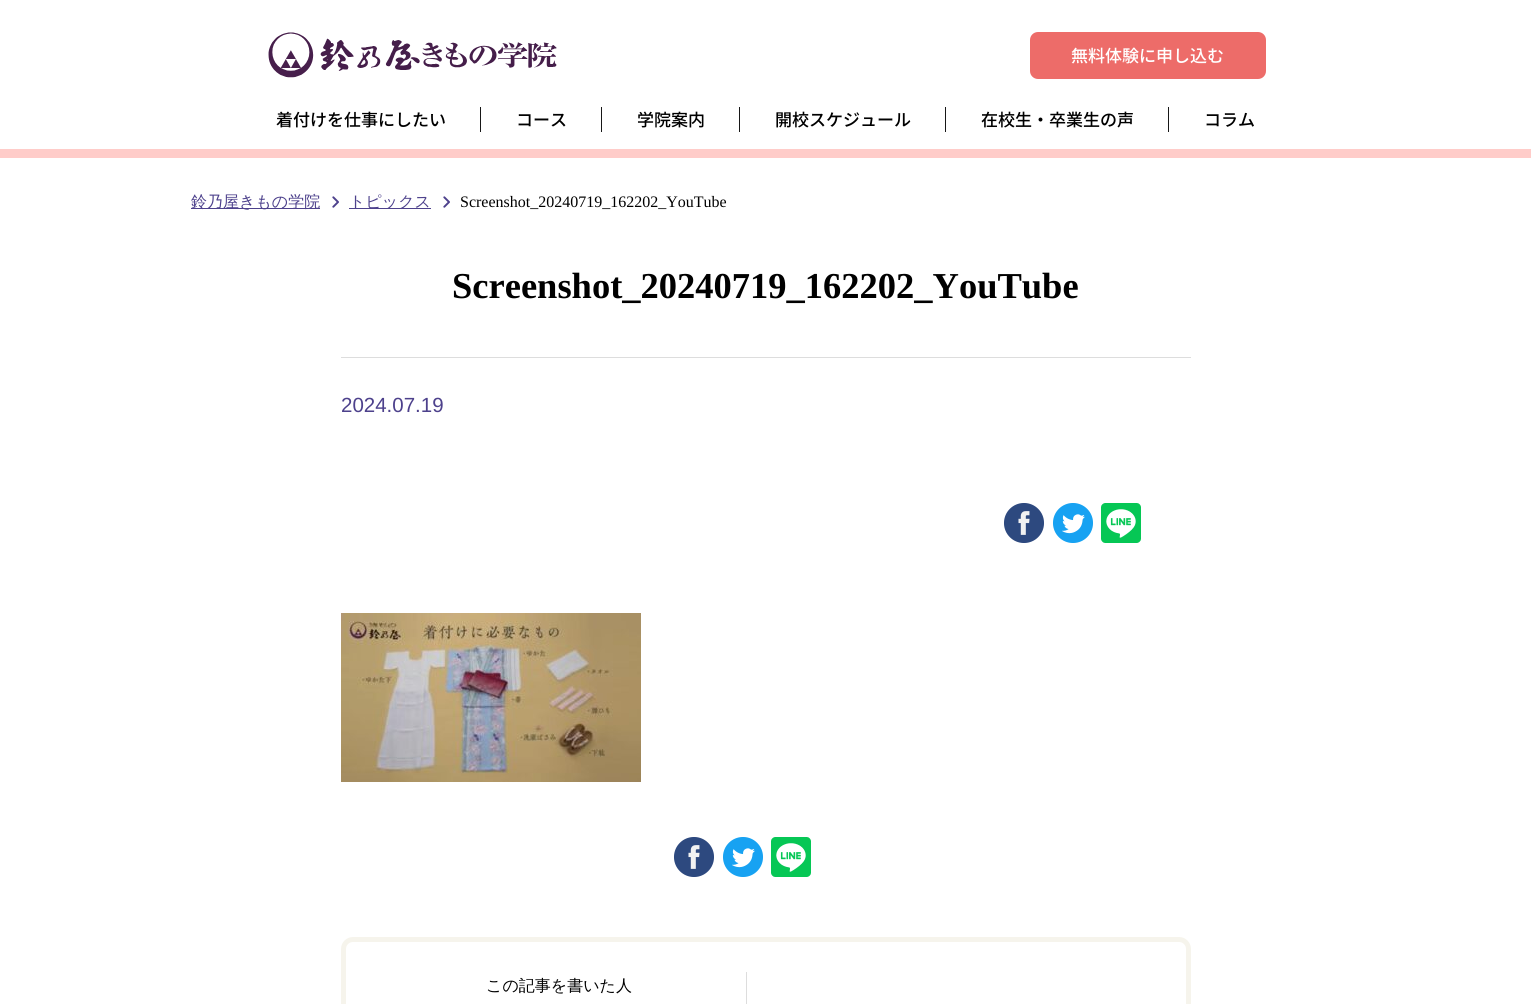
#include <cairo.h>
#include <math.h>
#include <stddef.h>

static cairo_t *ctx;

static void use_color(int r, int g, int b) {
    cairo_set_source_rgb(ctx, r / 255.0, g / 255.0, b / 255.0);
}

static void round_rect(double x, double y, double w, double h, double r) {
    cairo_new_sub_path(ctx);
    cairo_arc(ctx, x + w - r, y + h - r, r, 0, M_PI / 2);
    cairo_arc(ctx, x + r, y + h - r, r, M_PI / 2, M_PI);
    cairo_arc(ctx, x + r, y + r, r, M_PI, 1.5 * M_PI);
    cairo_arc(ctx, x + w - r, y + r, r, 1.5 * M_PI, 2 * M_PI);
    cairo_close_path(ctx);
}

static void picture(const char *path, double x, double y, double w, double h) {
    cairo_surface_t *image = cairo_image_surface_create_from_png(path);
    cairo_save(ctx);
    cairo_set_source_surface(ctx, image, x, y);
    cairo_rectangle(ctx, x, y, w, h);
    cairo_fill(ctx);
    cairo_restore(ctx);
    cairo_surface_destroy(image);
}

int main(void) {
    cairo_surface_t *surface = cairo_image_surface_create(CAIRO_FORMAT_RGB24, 1531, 1004);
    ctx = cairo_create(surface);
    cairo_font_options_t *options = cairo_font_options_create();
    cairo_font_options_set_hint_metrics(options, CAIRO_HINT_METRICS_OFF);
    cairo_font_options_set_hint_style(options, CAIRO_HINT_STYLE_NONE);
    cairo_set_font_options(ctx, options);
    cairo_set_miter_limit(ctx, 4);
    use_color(255, 255, 255);
    cairo_paint(ctx);
    use_color(255, 204, 201);
    cairo_rectangle(ctx, 0, 149, 1531, 9);
    cairo_fill(ctx);
    picture("img1.png", 268, 32, 289, 46);
    use_color(237, 108, 105);
    round_rect(1030, 32, 236, 47, 8);
    cairo_fill(ctx);
    cairo_select_font_face(ctx, "Noto Sans JP Medium", CAIRO_FONT_SLANT_NORMAL, CAIRO_FONT_WEIGHT_NORMAL);
    cairo_set_font_size(ctx, 17);
    use_color(255, 255, 255);
    cairo_move_to(ctx, 1071, 62);
    cairo_show_text(ctx, "無料体験に申し込む");
    use_color(0, 0, 0);
    cairo_move_to(ctx, 276, 126);
    cairo_show_text(ctx, "着付けを仕事にしたい");
    use_color(23, 23, 23);
    cairo_rectangle(ctx, 480, 107, 1, 25);
    cairo_fill(ctx);
    use_color(0, 0, 0);
    cairo_move_to(ctx, 516, 126);
    cairo_show_text(ctx, "コース");
    use_color(23, 23, 23);
    cairo_rectangle(ctx, 601, 107, 1, 25);
    cairo_fill(ctx);
    use_color(0, 0, 0);
    cairo_move_to(ctx, 637, 126);
    cairo_show_text(ctx, "学院案内");
    use_color(23, 23, 23);
    cairo_rectangle(ctx, 739, 107, 1, 25);
    cairo_fill(ctx);
    use_color(0, 0, 0);
    cairo_move_to(ctx, 775, 126);
    cairo_show_text(ctx, "開校スケジュール");
    use_color(23, 23, 23);
    cairo_rectangle(ctx, 945, 107, 1, 25);
    cairo_fill(ctx);
    use_color(0, 0, 0);
    cairo_move_to(ctx, 981, 126);
    cairo_show_text(ctx, "在校生・卒業生の声");
    use_color(23, 23, 23);
    cairo_rectangle(ctx, 1168, 107, 1, 25);
    cairo_fill(ctx);
    use_color(0, 0, 0);
    cairo_move_to(ctx, 1204, 126);
    cairo_show_text(ctx, "コラム");
    use_color(77, 65, 140);
    cairo_rectangle(ctx, 191, 208, 129, 1);
    cairo_fill(ctx);
    cairo_select_font_face(ctx, "WenQuanYi Zen Hei Medium", CAIRO_FONT_SLANT_NORMAL, CAIRO_FONT_WEIGHT_NORMAL);
    cairo_set_font_size(ctx, 16);
    cairo_move_to(ctx, 191, 207);
    cairo_show_text(ctx, "鈴乃屋きもの学院");
    picture("img2.png", 332, 196, 7, 12);
    cairo_rectangle(ctx, 349, 208, 82, 1);
    cairo_fill(ctx);
    cairo_move_to(ctx, 349, 207);
    cairo_show_text(ctx, "トピックス");
    picture("img2.png", 443, 196, 7, 12);
    cairo_select_font_face(ctx, "Liberation Serif", CAIRO_FONT_SLANT_NORMAL, CAIRO_FONT_WEIGHT_NORMAL);
    use_color(0, 0, 0);
    cairo_move_to(ctx, 460, 207);
    cairo_show_text(ctx, "Screenshot_20240719_162202_YouTube");
    cairo_select_font_face(ctx, "Liberation Serif", CAIRO_FONT_SLANT_NORMAL, CAIRO_FONT_WEIGHT_BOLD);
    cairo_set_font_size(ctx, 36.5);
    cairo_move_to(ctx, 452, 298);
    cairo_show_text(ctx, "Screenshot_20240719_162202_YouTube");
    use_color(221, 221, 221);
    cairo_rectangle(ctx, 341, 357, 850, 1);
    cairo_fill(ctx);
    cairo_select_font_face(ctx, "Liberation Sans", CAIRO_FONT_SLANT_NORMAL, CAIRO_FONT_WEIGHT_NORMAL);
    cairo_set_font_size(ctx, 20.5);
    use_color(77, 65, 140);
    cairo_move_to(ctx, 341, 412);
    cairo_show_text(ctx, "2024.07.19");
    picture("img3.png", 1004, 503, 40, 40);
    picture("img4.png", 1053, 503, 40, 40);
    picture("img5.png", 1101, 503, 40, 40);
    picture("img6.png", 341, 613, 300, 169);
    picture("img3.png", 674, 837, 40, 40);
    picture("img4.png", 723, 837, 40, 40);
    picture("img5.png", 771, 837, 40, 40);
    round_rect(343.5, 939.5, 845, 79, 9.5);
    use_color(246, 244, 236);
    cairo_set_line_width(ctx, 5);
    cairo_stroke(ctx);
    cairo_select_font_face(ctx, "WenQuanYi Zen Hei Medium", CAIRO_FONT_SLANT_NORMAL, CAIRO_FONT_WEIGHT_NORMAL);
    cairo_set_font_size(ctx, 16);
    use_color(0, 0, 0);
    cairo_move_to(ctx, 486, 991);
    cairo_show_text(ctx, "この記事を書いた人");
    use_color(221, 221, 221);
    cairo_rectangle(ctx, 746, 972, 1, 32);
    cairo_fill(ctx);
    cairo_surface_write_to_png(surface, "result.png");
    cairo_font_options_destroy(options);
    cairo_destroy(ctx);
    cairo_surface_destroy(surface);
    return 0;
}
